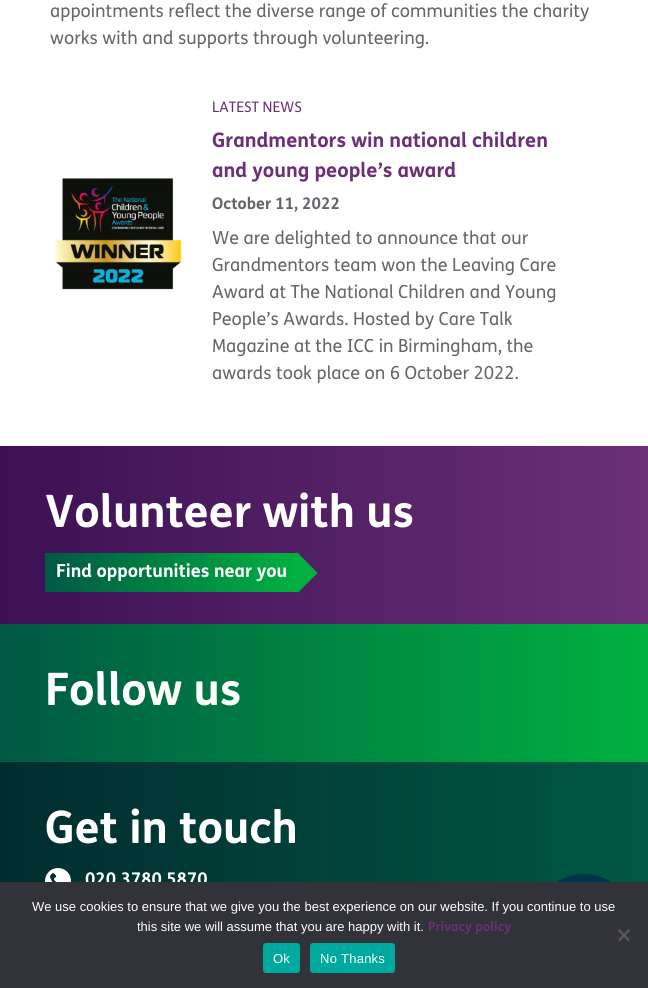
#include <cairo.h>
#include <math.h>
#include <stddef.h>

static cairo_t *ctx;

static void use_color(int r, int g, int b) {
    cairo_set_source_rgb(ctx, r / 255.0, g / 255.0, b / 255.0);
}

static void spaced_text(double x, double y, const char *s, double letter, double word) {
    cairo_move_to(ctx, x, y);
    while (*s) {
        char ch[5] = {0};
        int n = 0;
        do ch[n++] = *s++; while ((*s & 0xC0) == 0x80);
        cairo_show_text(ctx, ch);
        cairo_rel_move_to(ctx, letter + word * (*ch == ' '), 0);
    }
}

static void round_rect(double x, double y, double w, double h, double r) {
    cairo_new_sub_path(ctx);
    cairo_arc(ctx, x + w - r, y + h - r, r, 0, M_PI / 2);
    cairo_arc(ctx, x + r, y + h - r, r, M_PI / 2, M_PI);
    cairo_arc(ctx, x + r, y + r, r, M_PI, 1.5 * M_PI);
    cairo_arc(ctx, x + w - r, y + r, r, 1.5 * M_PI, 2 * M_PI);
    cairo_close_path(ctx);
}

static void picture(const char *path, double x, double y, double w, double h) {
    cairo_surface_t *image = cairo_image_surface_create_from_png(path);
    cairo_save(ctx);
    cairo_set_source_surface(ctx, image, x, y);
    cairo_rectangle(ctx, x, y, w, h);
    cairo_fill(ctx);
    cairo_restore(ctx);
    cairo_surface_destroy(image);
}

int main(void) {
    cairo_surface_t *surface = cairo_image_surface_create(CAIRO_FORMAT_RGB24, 648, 988);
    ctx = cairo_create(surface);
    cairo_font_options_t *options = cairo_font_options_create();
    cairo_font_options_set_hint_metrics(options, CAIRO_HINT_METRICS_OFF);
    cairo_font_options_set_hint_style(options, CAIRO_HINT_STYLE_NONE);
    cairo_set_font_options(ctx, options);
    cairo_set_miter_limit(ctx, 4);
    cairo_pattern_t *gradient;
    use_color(255, 255, 255);
    cairo_paint(ctx);
    cairo_select_font_face(ctx, "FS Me", CAIRO_FONT_SLANT_NORMAL, CAIRO_FONT_WEIGHT_NORMAL);
    cairo_set_font_size(ctx, 18);
    use_color(99, 102, 106);
    cairo_move_to(ctx, 50, 17);
    cairo_show_text(ctx, "appointments reflect the diverse range of communities the charity");
    cairo_move_to(ctx, 50, 44);
    cairo_show_text(ctx, "works with and supports through volunteering.");
    picture("img1.png", 55, 178, 127, 112);
    cairo_set_font_size(ctx, 14.5);
    use_color(107, 48, 119);
    cairo_move_to(ctx, 212, 112);
    cairo_show_text(ctx, "LATEST NEWS");
    cairo_select_font_face(ctx, "FS Me", CAIRO_FONT_SLANT_NORMAL, CAIRO_FONT_WEIGHT_BOLD);
    cairo_set_font_size(ctx, 20);
    cairo_move_to(ctx, 212, 147);
    cairo_show_text(ctx, "Grandmentors win national children");
    cairo_move_to(ctx, 212, 177);
    cairo_show_text(ctx, "and young people’s award");
    cairo_set_font_size(ctx, 16);
    use_color(99, 102, 106);
    cairo_move_to(ctx, 212, 209);
    cairo_show_text(ctx, "October 11, 2022");
    cairo_select_font_face(ctx, "FS Me", CAIRO_FONT_SLANT_NORMAL, CAIRO_FONT_WEIGHT_NORMAL);
    cairo_set_font_size(ctx, 18);
    cairo_move_to(ctx, 212, 244);
    cairo_show_text(ctx, "We are delighted to announce that our");
    cairo_move_to(ctx, 212, 271);
    cairo_show_text(ctx, "Grandmentors team won the Leaving Care");
    cairo_move_to(ctx, 212, 298);
    cairo_show_text(ctx, "Award at The National Children and Young");
    cairo_move_to(ctx, 212, 325);
    cairo_show_text(ctx, "People’s Awards. Hosted by Care Talk");
    cairo_move_to(ctx, 212, 352);
    cairo_show_text(ctx, "Magazine at the ICC in Birmingham, the");
    cairo_move_to(ctx, 212, 379);
    cairo_show_text(ctx, "awards took place on 6 October 2022.");
    gradient = cairo_pattern_create_linear(0, 535, 648, 535);
    cairo_pattern_add_color_stop_rgba(gradient, 0, 0.235, 0.063, 0.325, 1);
    cairo_pattern_add_color_stop_rgba(gradient, 1, 0.42, 0.188, 0.467, 1);
    cairo_set_source(ctx, gradient);
    cairo_pattern_destroy(gradient);
    cairo_rectangle(ctx, 0, 446, 648, 178);
    cairo_fill(ctx);
    cairo_select_font_face(ctx, "FS Me", CAIRO_FONT_SLANT_NORMAL, CAIRO_FONT_WEIGHT_BOLD);
    cairo_set_font_size(ctx, 44.75);
    use_color(255, 255, 255);
    cairo_move_to(ctx, 45, 527);
    cairo_show_text(ctx, "Volunteer with us");
    gradient = cairo_pattern_create_linear(45, 573, 298, 573);
    cairo_pattern_add_color_stop_rgba(gradient, 0, 0, 0.345, 0.267, 1);
    cairo_pattern_add_color_stop_rgba(gradient, 1, 0, 0.694, 0.251, 1);
    cairo_set_source(ctx, gradient);
    cairo_pattern_destroy(gradient);
    cairo_rectangle(ctx, 45, 553, 253, 39);
    cairo_fill(ctx);
    cairo_set_font_size(ctx, 18);
    use_color(255, 255, 255);
    cairo_move_to(ctx, 56, 577);
    cairo_show_text(ctx, "Find opportunities near you");
    use_color(0, 177, 64);
    cairo_new_path(ctx);
    cairo_move_to(ctx, 298, 553);
    cairo_line_to(ctx, 317.5, 573);
    cairo_line_to(ctx, 298, 592.5);
    cairo_close_path(ctx);
    cairo_fill(ctx);
    gradient = cairo_pattern_create_linear(0, 693, 648, 693);
    cairo_pattern_add_color_stop_rgba(gradient, 0, 0, 0.345, 0.267, 1);
    cairo_pattern_add_color_stop_rgba(gradient, 1, 0, 0.694, 0.251, 1);
    cairo_set_source(ctx, gradient);
    cairo_pattern_destroy(gradient);
    cairo_rectangle(ctx, 0, 624, 648, 138);
    cairo_fill(ctx);
    cairo_set_font_size(ctx, 44.75);
    use_color(255, 255, 255);
    cairo_move_to(ctx, 45, 705);
    cairo_show_text(ctx, "Follow us");
    gradient = cairo_pattern_create_linear(0, 877, 648, 877);
    cairo_pattern_add_color_stop_rgba(gradient, 0, 0.004, 0.173, 0.184, 1);
    cairo_pattern_add_color_stop_rgba(gradient, 1, 0, 0.345, 0.267, 1);
    cairo_set_source(ctx, gradient);
    cairo_pattern_destroy(gradient);
    cairo_rectangle(ctx, 0, 762, 648, 120);
    cairo_fill(ctx);
    use_color(255, 255, 255);
    cairo_move_to(ctx, 45, 843);
    cairo_show_text(ctx, "Get in touch");
    cairo_new_path(ctx);
    cairo_arc(ctx, 58, 881, 13, 0, 2 * M_PI);
    cairo_fill(ctx);
    picture("img2.png", 50, 873, 12, 9);
    cairo_set_font_size(ctx, 17.5);
    cairo_move_to(ctx, 85, 885);
    cairo_show_text(ctx, "020 3780 5870");
    use_color(0, 52, 76);
    cairo_new_path(ctx);
    cairo_arc(ctx, 584, 924, 50, 0, 2 * M_PI);
    cairo_fill(ctx);
    use_color(50, 50, 58);
    cairo_rectangle(ctx, 0, 882, 648, 106);
    cairo_fill(ctx);
    cairo_select_font_face(ctx, "Liberation Sans", CAIRO_FONT_SLANT_NORMAL, CAIRO_FONT_WEIGHT_NORMAL);
    cairo_set_font_size(ctx, 13);
    use_color(255, 255, 255);
    cairo_move_to(ctx, 32, 911);
    cairo_show_text(ctx, "We use cookies to ensure that we give you the best experience on our website. If you continue to use");
    cairo_move_to(ctx, 137, 931);
    cairo_show_text(ctx, "this site we will assume that you are happy with it.");
    cairo_select_font_face(ctx, "FS Me", CAIRO_FONT_SLANT_NORMAL, CAIRO_FONT_WEIGHT_BOLD);
    use_color(107, 48, 119);
    cairo_move_to(ctx, 428, 931);
    cairo_show_text(ctx, "Privacy policy");
    use_color(89, 89, 93);
    cairo_new_path(ctx);
    cairo_move_to(ctx, 628.5, 929);
    cairo_line_to(ctx, 630, 930.5);
    cairo_line_to(ctx, 619.5, 941.5);
    cairo_line_to(ctx, 618, 940);
    cairo_close_path(ctx);
    cairo_fill(ctx);
    cairo_new_path(ctx);
    cairo_move_to(ctx, 618, 930.5);
    cairo_line_to(ctx, 619.5, 929);
    cairo_line_to(ctx, 630, 940);
    cairo_line_to(ctx, 628.5, 941.5);
    cairo_close_path(ctx);
    cairo_fill(ctx);
    use_color(0, 169, 157);
    round_rect(263, 943, 37, 30, 3);
    cairo_fill(ctx);
    cairo_select_font_face(ctx, "Liberation Sans", CAIRO_FONT_SLANT_NORMAL, CAIRO_FONT_WEIGHT_NORMAL);
    use_color(255, 255, 255);
    spaced_text(273, 963, "Ok", 0.25, 0);
    use_color(0, 169, 157);
    round_rect(310, 943, 85, 30, 3);
    cairo_fill(ctx);
    use_color(255, 255, 255);
    spaced_text(320, 963, "No Thanks", 0.25, 0);
    cairo_surface_write_to_png(surface, "result.png");
    cairo_font_options_destroy(options);
    cairo_destroy(ctx);
    cairo_surface_destroy(surface);
    return 0;
}
